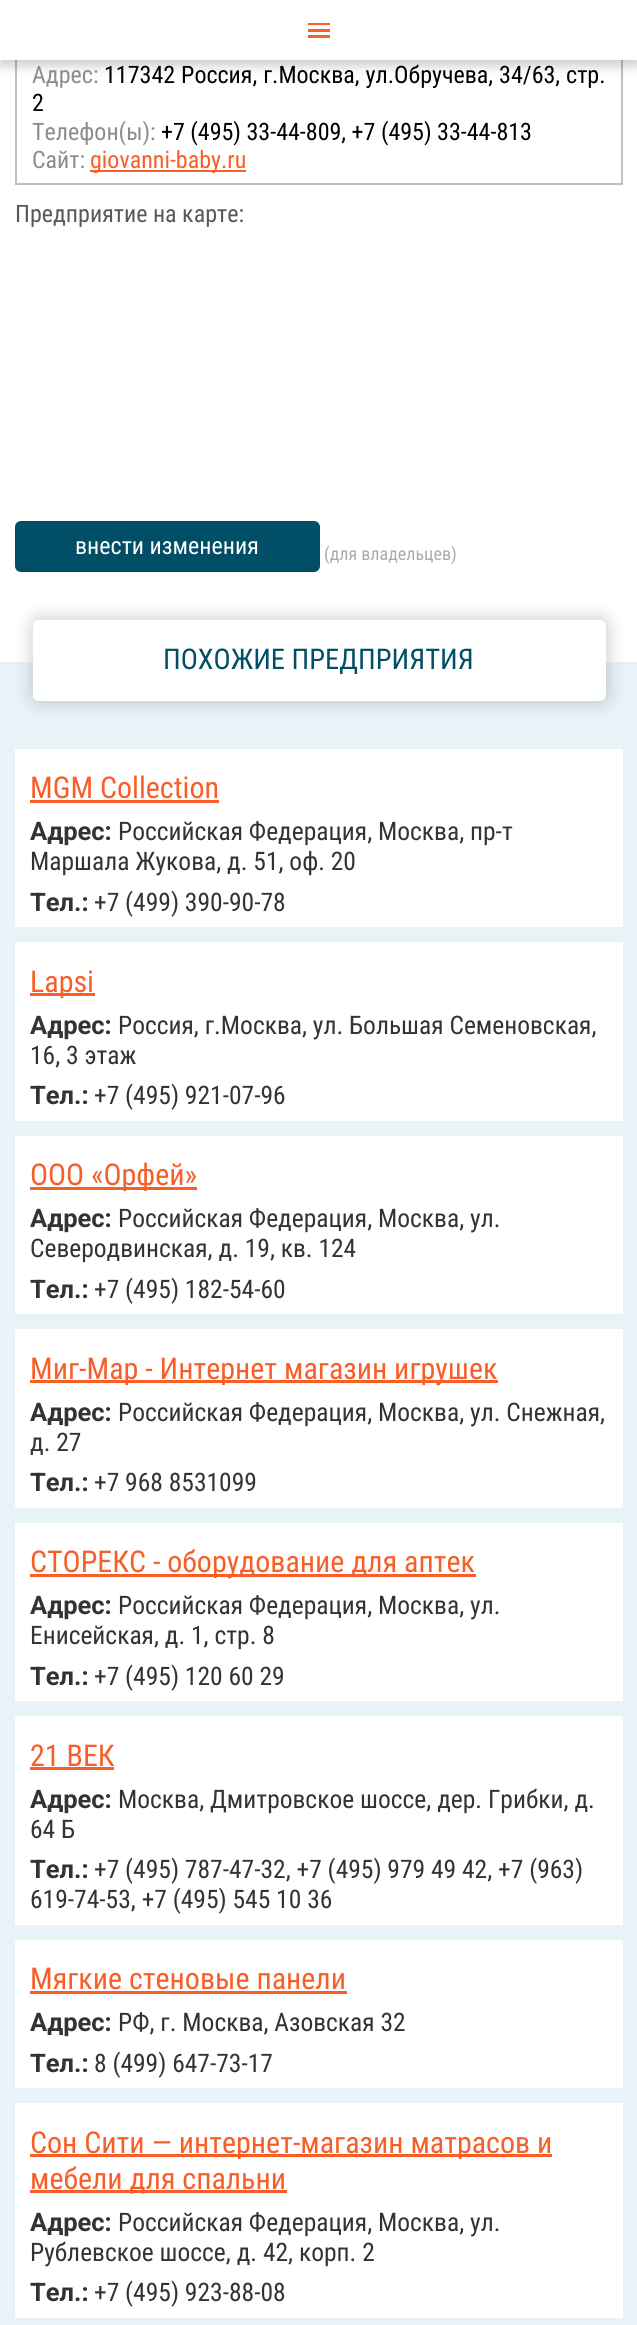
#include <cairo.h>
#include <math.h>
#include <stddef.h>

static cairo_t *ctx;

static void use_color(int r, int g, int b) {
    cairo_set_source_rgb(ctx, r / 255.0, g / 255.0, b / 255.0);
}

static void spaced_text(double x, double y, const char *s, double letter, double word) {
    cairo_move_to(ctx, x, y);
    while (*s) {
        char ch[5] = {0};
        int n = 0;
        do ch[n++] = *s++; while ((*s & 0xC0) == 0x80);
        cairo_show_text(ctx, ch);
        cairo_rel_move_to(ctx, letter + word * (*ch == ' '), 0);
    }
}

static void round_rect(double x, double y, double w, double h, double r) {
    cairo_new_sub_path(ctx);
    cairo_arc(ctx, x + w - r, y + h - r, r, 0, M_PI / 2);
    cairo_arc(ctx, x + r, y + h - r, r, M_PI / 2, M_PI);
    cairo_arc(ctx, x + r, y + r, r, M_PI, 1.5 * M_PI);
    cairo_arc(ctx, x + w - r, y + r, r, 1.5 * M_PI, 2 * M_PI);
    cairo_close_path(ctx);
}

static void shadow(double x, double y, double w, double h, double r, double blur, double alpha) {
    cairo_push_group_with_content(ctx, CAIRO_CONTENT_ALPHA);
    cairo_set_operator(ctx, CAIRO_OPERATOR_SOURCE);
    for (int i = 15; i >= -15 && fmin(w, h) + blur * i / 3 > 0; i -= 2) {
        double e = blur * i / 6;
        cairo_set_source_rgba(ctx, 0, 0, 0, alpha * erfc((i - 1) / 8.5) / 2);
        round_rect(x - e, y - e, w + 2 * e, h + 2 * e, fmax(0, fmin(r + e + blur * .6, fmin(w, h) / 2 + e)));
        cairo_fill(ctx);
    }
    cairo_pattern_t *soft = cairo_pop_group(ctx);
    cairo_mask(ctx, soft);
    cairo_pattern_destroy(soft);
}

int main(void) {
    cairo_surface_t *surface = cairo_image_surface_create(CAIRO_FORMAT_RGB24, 637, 2325);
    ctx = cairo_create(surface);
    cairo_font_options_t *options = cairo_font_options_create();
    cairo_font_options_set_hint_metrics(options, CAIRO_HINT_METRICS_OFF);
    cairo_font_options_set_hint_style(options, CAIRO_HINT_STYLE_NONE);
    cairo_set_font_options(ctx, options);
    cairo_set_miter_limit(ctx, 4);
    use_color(255, 255, 255);
    cairo_paint(ctx);
    cairo_rectangle(ctx, 16, 51, 606, 133);
    use_color(192, 192, 192);
    cairo_stroke(ctx);
    use_color(0, 0, 0);
    shadow(0, 6, 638, 60, 0, 6, 0.2);
    use_color(255, 255, 255);
    cairo_rectangle(ctx, 0, 0, 637, 60);
    cairo_fill(ctx);
    use_color(248, 94, 40);
    cairo_rectangle(ctx, 308, 23, 22, 2);
    cairo_fill(ctx);
    cairo_rectangle(ctx, 308, 35, 22, 3);
    cairo_fill(ctx);
    cairo_rectangle(ctx, 308, 29, 22, 3);
    cairo_fill(ctx);
    cairo_select_font_face(ctx, "Roboto Condensed", CAIRO_FONT_SLANT_NORMAL, CAIRO_FONT_WEIGHT_NORMAL);
    cairo_set_font_size(ctx, 24);
    use_color(140, 140, 140);
    cairo_move_to(ctx, 32, 83);
    cairo_show_text(ctx, "Адрес:");
    use_color(0, 0, 0);
    spaced_text(104, 83, "117342 Россия, г.Москва, ул.Обручева, 34/63, стр.", 0, 0.5);
    cairo_move_to(ctx, 32, 111);
    cairo_show_text(ctx, "2");
    use_color(140, 140, 140);
    cairo_move_to(ctx, 32, 140);
    cairo_show_text(ctx, "Телефон(ы):");
    use_color(0, 0, 0);
    cairo_move_to(ctx, 161, 140);
    cairo_show_text(ctx, "+7 (495) 33-44-809, +7 (495) 33-44-813");
    use_color(140, 140, 140);
    cairo_move_to(ctx, 32, 168);
    cairo_show_text(ctx, "Сайт:");
    use_color(248, 94, 40);
    cairo_rectangle(ctx, 90, 170, 156, 2);
    cairo_fill(ctx);
    cairo_move_to(ctx, 90, 168);
    cairo_show_text(ctx, "giovanni-baby.ru");
    use_color(88, 88, 88);
    cairo_move_to(ctx, 15, 222);
    cairo_show_text(ctx, "Предприятие на карте:");
    use_color(0, 79, 102);
    round_rect(15, 521, 305, 51, 6);
    cairo_fill(ctx);
    use_color(255, 255, 255);
    cairo_move_to(ctx, 75, 554);
    cairo_show_text(ctx, "внести изменения");
    cairo_set_font_size(ctx, 18);
    use_color(171, 171, 171);
    cairo_move_to(ctx, 324, 560);
    cairo_show_text(ctx, "(для владельцев)");
    use_color(231, 243, 247);
    cairo_rectangle(ctx, 0, 662, 637, 1663);
    cairo_fill(ctx);
    use_color(0, 0, 0);
    shadow(32, 618, 576, 84, 8, 9, 0.2);
    use_color(255, 255, 255);
    round_rect(33, 620, 573, 81, 6);
    cairo_fill(ctx);
    cairo_set_font_size(ctx, 28.5);
    use_color(0, 79, 102);
    cairo_move_to(ctx, 163, 669);
    cairo_show_text(ctx, "ПОХОЖИЕ ПРЕДПРИЯТИЯ");
    use_color(255, 255, 255);
    cairo_rectangle(ctx, 15, 749, 608, 178);
    cairo_fill(ctx);
    cairo_set_font_size(ctx, 30);
    use_color(248, 94, 40);
    cairo_move_to(ctx, 30, 798);
    cairo_show_text(ctx, "MGM Collection");
    cairo_rectangle(ctx, 30, 800, 189, 3);
    cairo_fill(ctx);
    cairo_select_font_face(ctx, "Roboto", CAIRO_FONT_SLANT_NORMAL, CAIRO_FONT_WEIGHT_BOLD);
    cairo_set_font_size(ctx, 25.5);
    use_color(51, 51, 51);
    cairo_move_to(ctx, 30, 840);
    cairo_show_text(ctx, "Адрес:");
    cairo_select_font_face(ctx, "Roboto Condensed", CAIRO_FONT_SLANT_NORMAL, CAIRO_FONT_WEIGHT_NORMAL);
    cairo_move_to(ctx, 118, 840);
    cairo_show_text(ctx, "Российcкая Федерация, Москва, пр-т");
    cairo_move_to(ctx, 30, 870);
    cairo_show_text(ctx, "Маршала Жукова, д. 51, оф. 20");
    cairo_select_font_face(ctx, "Roboto", CAIRO_FONT_SLANT_NORMAL, CAIRO_FONT_WEIGHT_BOLD);
    cairo_move_to(ctx, 30, 911);
    cairo_show_text(ctx, "Тел.:");
    cairo_select_font_face(ctx, "Roboto Condensed", CAIRO_FONT_SLANT_NORMAL, CAIRO_FONT_WEIGHT_NORMAL);
    cairo_move_to(ctx, 94, 911);
    cairo_show_text(ctx, "+7 (499) 390-90-78");
    use_color(255, 255, 255);
    cairo_rectangle(ctx, 15, 942, 608, 179);
    cairo_fill(ctx);
    use_color(248, 94, 40);
    cairo_rectangle(ctx, 30, 993, 65, 3);
    cairo_fill(ctx);
    cairo_set_font_size(ctx, 30);
    cairo_move_to(ctx, 30, 992);
    cairo_show_text(ctx, "Lapsi");
    cairo_select_font_face(ctx, "Roboto", CAIRO_FONT_SLANT_NORMAL, CAIRO_FONT_WEIGHT_BOLD);
    cairo_set_font_size(ctx, 25.5);
    use_color(51, 51, 51);
    cairo_move_to(ctx, 30, 1034);
    cairo_show_text(ctx, "Адрес:");
    cairo_select_font_face(ctx, "Roboto Condensed", CAIRO_FONT_SLANT_NORMAL, CAIRO_FONT_WEIGHT_NORMAL);
    cairo_move_to(ctx, 118, 1034);
    cairo_show_text(ctx, "Россия, г.Москва, ул. Большая Семеновская,");
    cairo_move_to(ctx, 30, 1064);
    cairo_show_text(ctx, "16, 3 этаж");
    cairo_select_font_face(ctx, "Roboto", CAIRO_FONT_SLANT_NORMAL, CAIRO_FONT_WEIGHT_BOLD);
    cairo_move_to(ctx, 30, 1104);
    cairo_show_text(ctx, "Тел.:");
    cairo_select_font_face(ctx, "Roboto Condensed", CAIRO_FONT_SLANT_NORMAL, CAIRO_FONT_WEIGHT_NORMAL);
    cairo_move_to(ctx, 94, 1104);
    cairo_show_text(ctx, "+7 (495) 921-07-96");
    use_color(255, 255, 255);
    cairo_rectangle(ctx, 15, 1136, 608, 178);
    cairo_fill(ctx);
    use_color(248, 94, 40);
    cairo_rectangle(ctx, 30, 1187, 167, 3);
    cairo_fill(ctx);
    cairo_set_font_size(ctx, 30);
    cairo_move_to(ctx, 30, 1185);
    cairo_show_text(ctx, "ООО «Орфей»");
    cairo_select_font_face(ctx, "Roboto", CAIRO_FONT_SLANT_NORMAL, CAIRO_FONT_WEIGHT_BOLD);
    cairo_set_font_size(ctx, 25.5);
    use_color(51, 51, 51);
    cairo_move_to(ctx, 30, 1227);
    cairo_show_text(ctx, "Адрес:");
    cairo_select_font_face(ctx, "Roboto Condensed", CAIRO_FONT_SLANT_NORMAL, CAIRO_FONT_WEIGHT_NORMAL);
    cairo_move_to(ctx, 118, 1227);
    cairo_show_text(ctx, "Российcкая Федерация, Москва, ул.");
    cairo_move_to(ctx, 30, 1257);
    cairo_show_text(ctx, "Северодвинская, д. 19, кв. 124");
    cairo_select_font_face(ctx, "Roboto", CAIRO_FONT_SLANT_NORMAL, CAIRO_FONT_WEIGHT_BOLD);
    cairo_move_to(ctx, 30, 1298);
    cairo_show_text(ctx, "Тел.:");
    cairo_select_font_face(ctx, "Roboto Condensed", CAIRO_FONT_SLANT_NORMAL, CAIRO_FONT_WEIGHT_NORMAL);
    cairo_move_to(ctx, 94, 1298);
    cairo_show_text(ctx, "+7 (495) 182-54-60");
    use_color(255, 255, 255);
    cairo_rectangle(ctx, 15, 1329, 608, 179);
    cairo_fill(ctx);
    use_color(248, 94, 40);
    cairo_rectangle(ctx, 30, 1380, 468, 3);
    cairo_fill(ctx);
    cairo_set_font_size(ctx, 30);
    cairo_move_to(ctx, 30, 1379);
    cairo_show_text(ctx, "Миг-Мар - Интернет магазин игрушек");
    cairo_select_font_face(ctx, "Roboto", CAIRO_FONT_SLANT_NORMAL, CAIRO_FONT_WEIGHT_BOLD);
    cairo_set_font_size(ctx, 25.5);
    use_color(51, 51, 51);
    cairo_move_to(ctx, 30, 1421);
    cairo_show_text(ctx, "Адрес:");
    cairo_select_font_face(ctx, "Roboto Condensed", CAIRO_FONT_SLANT_NORMAL, CAIRO_FONT_WEIGHT_NORMAL);
    cairo_move_to(ctx, 118, 1421);
    cairo_show_text(ctx, "Российcкая Федерация, Москва, ул. Снежная,");
    cairo_move_to(ctx, 30, 1451);
    cairo_show_text(ctx, "д. 27");
    cairo_select_font_face(ctx, "Roboto", CAIRO_FONT_SLANT_NORMAL, CAIRO_FONT_WEIGHT_BOLD);
    cairo_move_to(ctx, 30, 1491);
    cairo_show_text(ctx, "Тел.:");
    cairo_select_font_face(ctx, "Roboto Condensed", CAIRO_FONT_SLANT_NORMAL, CAIRO_FONT_WEIGHT_NORMAL);
    cairo_move_to(ctx, 94, 1491);
    cairo_show_text(ctx, "+7 968 8531099");
    use_color(255, 255, 255);
    cairo_rectangle(ctx, 15, 1523, 608, 178);
    cairo_fill(ctx);
    use_color(248, 94, 40);
    cairo_rectangle(ctx, 30, 1574, 446, 3);
    cairo_fill(ctx);
    cairo_set_font_size(ctx, 30);
    cairo_move_to(ctx, 30, 1572);
    cairo_show_text(ctx, "СТОРЕКС - оборудование для аптек");
    cairo_select_font_face(ctx, "Roboto", CAIRO_FONT_SLANT_NORMAL, CAIRO_FONT_WEIGHT_BOLD);
    cairo_set_font_size(ctx, 25.5);
    use_color(51, 51, 51);
    cairo_move_to(ctx, 30, 1614);
    cairo_show_text(ctx, "Адрес:");
    cairo_select_font_face(ctx, "Roboto Condensed", CAIRO_FONT_SLANT_NORMAL, CAIRO_FONT_WEIGHT_NORMAL);
    cairo_move_to(ctx, 118, 1614);
    cairo_show_text(ctx, "Российcкая Федерация, Москва, ул.");
    cairo_move_to(ctx, 30, 1644);
    cairo_show_text(ctx, "Енисейская, д. 1, стр. 8");
    cairo_select_font_face(ctx, "Roboto", CAIRO_FONT_SLANT_NORMAL, CAIRO_FONT_WEIGHT_BOLD);
    cairo_move_to(ctx, 30, 1685);
    cairo_show_text(ctx, "Тел.:");
    cairo_select_font_face(ctx, "Roboto Condensed", CAIRO_FONT_SLANT_NORMAL, CAIRO_FONT_WEIGHT_NORMAL);
    cairo_move_to(ctx, 94, 1685);
    cairo_show_text(ctx, "+7 (495) 120 60 29");
    use_color(255, 255, 255);
    cairo_rectangle(ctx, 15, 1716, 608, 209);
    cairo_fill(ctx);
    cairo_set_font_size(ctx, 30);
    use_color(248, 94, 40);
    cairo_move_to(ctx, 30, 1766);
    cairo_show_text(ctx, "21 ВЕК");
    cairo_rectangle(ctx, 30, 1767, 84, 3);
    cairo_fill(ctx);
    cairo_select_font_face(ctx, "Roboto", CAIRO_FONT_SLANT_NORMAL, CAIRO_FONT_WEIGHT_BOLD);
    cairo_set_font_size(ctx, 25.5);
    use_color(51, 51, 51);
    cairo_move_to(ctx, 30, 1808);
    cairo_show_text(ctx, "Адрес:");
    cairo_select_font_face(ctx, "Roboto Condensed", CAIRO_FONT_SLANT_NORMAL, CAIRO_FONT_WEIGHT_NORMAL);
    cairo_move_to(ctx, 118, 1808);
    cairo_show_text(ctx, "Москва, Дмитровское шоссе, дер. Грибки, д.");
    cairo_move_to(ctx, 30, 1838);
    cairo_show_text(ctx, "64 Б");
    cairo_select_font_face(ctx, "Roboto", CAIRO_FONT_SLANT_NORMAL, CAIRO_FONT_WEIGHT_BOLD);
    cairo_move_to(ctx, 30, 1878);
    cairo_show_text(ctx, "Тел.:");
    cairo_select_font_face(ctx, "Roboto Condensed", CAIRO_FONT_SLANT_NORMAL, CAIRO_FONT_WEIGHT_NORMAL);
    cairo_move_to(ctx, 94, 1878);
    cairo_show_text(ctx, "+7 (495) 787-47-32, +7 (495) 979 49 42, +7 (963)");
    cairo_move_to(ctx, 30, 1908);
    cairo_show_text(ctx, "619-74-53, +7 (495) 545 10 36");
    use_color(255, 255, 255);
    cairo_rectangle(ctx, 15, 1940, 608, 148);
    cairo_fill(ctx);
    cairo_set_font_size(ctx, 30);
    use_color(248, 94, 40);
    cairo_move_to(ctx, 30, 1989);
    cairo_show_text(ctx, "Мягкие стеновые панели");
    cairo_rectangle(ctx, 30, 1991, 317, 3);
    cairo_fill(ctx);
    cairo_select_font_face(ctx, "Roboto", CAIRO_FONT_SLANT_NORMAL, CAIRO_FONT_WEIGHT_BOLD);
    cairo_set_font_size(ctx, 25.5);
    use_color(51, 51, 51);
    cairo_move_to(ctx, 30, 2031);
    cairo_show_text(ctx, "Адрес:");
    cairo_select_font_face(ctx, "Roboto Condensed", CAIRO_FONT_SLANT_NORMAL, CAIRO_FONT_WEIGHT_NORMAL);
    cairo_move_to(ctx, 118, 2031);
    cairo_show_text(ctx, "РФ, г. Москва, Азовская 32");
    cairo_select_font_face(ctx, "Roboto", CAIRO_FONT_SLANT_NORMAL, CAIRO_FONT_WEIGHT_BOLD);
    cairo_move_to(ctx, 30, 2072);
    cairo_show_text(ctx, "Тел.:");
    cairo_select_font_face(ctx, "Roboto Condensed", CAIRO_FONT_SLANT_NORMAL, CAIRO_FONT_WEIGHT_NORMAL);
    cairo_move_to(ctx, 94, 2072);
    cairo_show_text(ctx, "8 (499) 647-73-17");
    use_color(255, 255, 255);
    cairo_rectangle(ctx, 15, 2103, 608, 215);
    cairo_fill(ctx);
    use_color(248, 94, 40);
    cairo_rectangle(ctx, 30, 2154, 522, 3);
    cairo_fill(ctx);
    cairo_set_font_size(ctx, 30);
    cairo_move_to(ctx, 30, 2153);
    cairo_show_text(ctx, "Сон Сити — интернет-магазин матрасов и");
    cairo_rectangle(ctx, 30, 2190, 257, 3);
    cairo_fill(ctx);
    cairo_move_to(ctx, 30, 2189);
    cairo_show_text(ctx, "мебели для спальни");
    cairo_select_font_face(ctx, "Roboto", CAIRO_FONT_SLANT_NORMAL, CAIRO_FONT_WEIGHT_BOLD);
    cairo_set_font_size(ctx, 25.5);
    use_color(51, 51, 51);
    cairo_move_to(ctx, 30, 2231);
    cairo_show_text(ctx, "Адрес:");
    cairo_select_font_face(ctx, "Roboto Condensed", CAIRO_FONT_SLANT_NORMAL, CAIRO_FONT_WEIGHT_NORMAL);
    cairo_move_to(ctx, 118, 2231);
    cairo_show_text(ctx, "Российcкая Федерация, Москва, ул.");
    cairo_move_to(ctx, 30, 2261);
    cairo_show_text(ctx, "Рублевское шоссе, д. 42, корп. 2");
    cairo_select_font_face(ctx, "Roboto", CAIRO_FONT_SLANT_NORMAL, CAIRO_FONT_WEIGHT_BOLD);
    cairo_move_to(ctx, 30, 2301);
    cairo_show_text(ctx, "Тел.:");
    cairo_select_font_face(ctx, "Roboto Condensed", CAIRO_FONT_SLANT_NORMAL, CAIRO_FONT_WEIGHT_NORMAL);
    cairo_move_to(ctx, 94, 2301);
    cairo_show_text(ctx, "+7 (495) 923-88-08");
    cairo_surface_write_to_png(surface, "result.png");
    cairo_font_options_destroy(options);
    cairo_destroy(ctx);
    cairo_surface_destroy(surface);
    return 0;
}
